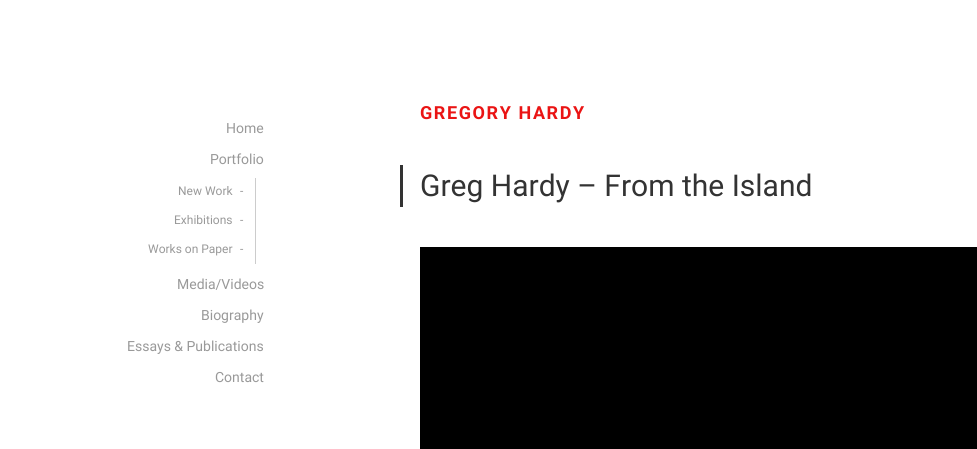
#include <cairo.h>
#include <math.h>
#include <stddef.h>

static cairo_t *ctx;

static void use_color(int r, int g, int b) {
    cairo_set_source_rgb(ctx, r / 255.0, g / 255.0, b / 255.0);
}

static void spaced_text(double x, double y, const char *s, double letter, double word) {
    cairo_move_to(ctx, x, y);
    while (*s) {
        char ch[5] = {0};
        int n = 0;
        do ch[n++] = *s++; while ((*s & 0xC0) == 0x80);
        cairo_show_text(ctx, ch);
        cairo_rel_move_to(ctx, letter + word * (*ch == ' '), 0);
    }
}

int main(void) {
    cairo_surface_t *surface = cairo_image_surface_create(CAIRO_FORMAT_RGB24, 977, 449);
    ctx = cairo_create(surface);
    cairo_font_options_t *options = cairo_font_options_create();
    cairo_font_options_set_hint_metrics(options, CAIRO_HINT_METRICS_OFF);
    cairo_font_options_set_hint_style(options, CAIRO_HINT_STYLE_NONE);
    cairo_set_font_options(ctx, options);
    cairo_set_miter_limit(ctx, 4);
    use_color(255, 255, 255);
    cairo_paint(ctx);
    cairo_select_font_face(ctx, "Roboto", CAIRO_FONT_SLANT_NORMAL, CAIRO_FONT_WEIGHT_NORMAL);
    cairo_set_font_size(ctx, 14);
    use_color(153, 153, 153);
    cairo_move_to(ctx, 226, 133);
    cairo_show_text(ctx, "Home");
    cairo_move_to(ctx, 210, 164);
    cairo_show_text(ctx, "Portfolio");
    use_color(204, 204, 204);
    cairo_rectangle(ctx, 255, 178, 1, 86);
    cairo_fill(ctx);
    cairo_set_font_size(ctx, 12);
    use_color(153, 153, 153);
    cairo_move_to(ctx, 178, 195);
    cairo_show_text(ctx, "New Work");
    cairo_move_to(ctx, 240, 195);
    cairo_show_text(ctx, "-");
    cairo_move_to(ctx, 174, 224);
    cairo_show_text(ctx, "Exhibitions");
    cairo_move_to(ctx, 240, 224);
    cairo_show_text(ctx, "-");
    cairo_move_to(ctx, 148, 253);
    cairo_show_text(ctx, "Works on Paper");
    cairo_move_to(ctx, 240, 253);
    cairo_show_text(ctx, "-");
    cairo_set_font_size(ctx, 14);
    cairo_move_to(ctx, 177, 289);
    cairo_show_text(ctx, "Media/Videos");
    cairo_move_to(ctx, 201, 320);
    cairo_show_text(ctx, "Biography");
    cairo_move_to(ctx, 127, 351);
    cairo_show_text(ctx, "Essays & Publications");
    cairo_move_to(ctx, 215, 382);
    cairo_show_text(ctx, "Contact");
    cairo_select_font_face(ctx, "Roboto", CAIRO_FONT_SLANT_NORMAL, CAIRO_FONT_WEIGHT_BOLD);
    cairo_set_font_size(ctx, 18);
    use_color(234, 20, 20);
    spaced_text(420, 119, "GREGORY HARDY", 1.6, 0);
    use_color(51, 51, 51);
    cairo_rectangle(ctx, 400, 165, 3, 42);
    cairo_fill(ctx);
    cairo_select_font_face(ctx, "Roboto", CAIRO_FONT_SLANT_NORMAL, CAIRO_FONT_WEIGHT_NORMAL);
    cairo_set_font_size(ctx, 30);
    cairo_move_to(ctx, 420, 196);
    cairo_show_text(ctx, "Greg Hardy – From the Island");
    use_color(0, 0, 0);
    cairo_rectangle(ctx, 420, 247, 557, 202);
    cairo_fill(ctx);
    cairo_surface_write_to_png(surface, "result.png");
    cairo_font_options_destroy(options);
    cairo_destroy(ctx);
    cairo_surface_destroy(surface);
    return 0;
}
